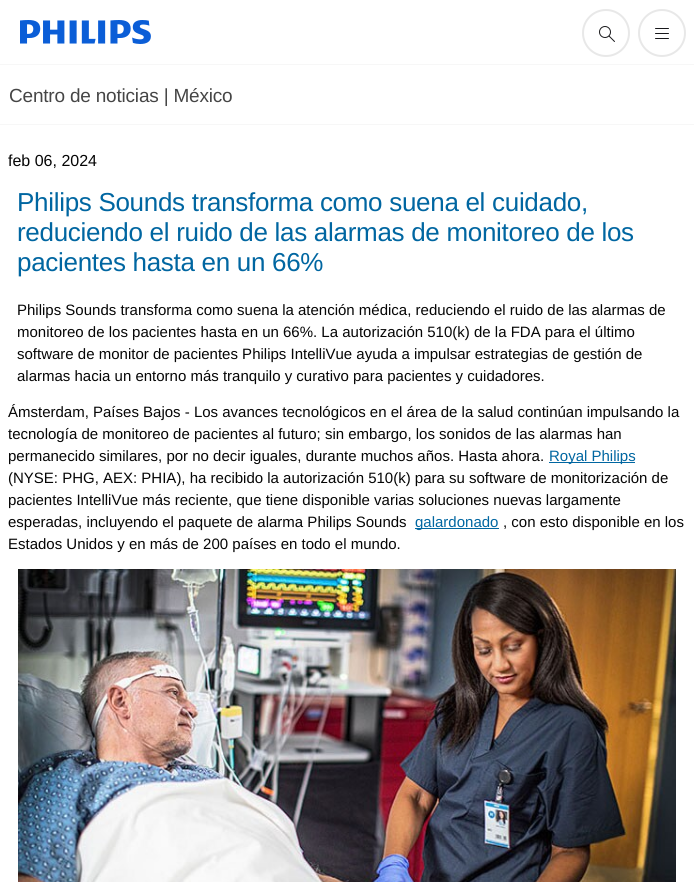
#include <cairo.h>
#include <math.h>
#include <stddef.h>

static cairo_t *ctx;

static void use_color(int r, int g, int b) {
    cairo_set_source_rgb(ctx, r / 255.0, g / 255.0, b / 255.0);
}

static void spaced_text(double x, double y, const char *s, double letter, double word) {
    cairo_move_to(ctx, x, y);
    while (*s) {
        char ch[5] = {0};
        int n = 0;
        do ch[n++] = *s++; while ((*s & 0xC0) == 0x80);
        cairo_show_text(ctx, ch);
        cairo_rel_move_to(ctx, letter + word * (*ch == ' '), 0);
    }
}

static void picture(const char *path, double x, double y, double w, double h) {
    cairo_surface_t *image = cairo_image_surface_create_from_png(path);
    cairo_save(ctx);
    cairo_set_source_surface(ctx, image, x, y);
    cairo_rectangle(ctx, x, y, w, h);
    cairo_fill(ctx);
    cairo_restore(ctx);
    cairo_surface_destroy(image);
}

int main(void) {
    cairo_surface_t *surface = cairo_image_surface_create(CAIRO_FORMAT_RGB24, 694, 882);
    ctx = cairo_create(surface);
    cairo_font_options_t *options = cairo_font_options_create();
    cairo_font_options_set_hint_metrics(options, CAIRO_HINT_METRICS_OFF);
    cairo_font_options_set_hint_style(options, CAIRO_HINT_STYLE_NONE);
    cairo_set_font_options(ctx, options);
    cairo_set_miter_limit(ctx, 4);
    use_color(255, 255, 255);
    cairo_paint(ctx);
    picture("img1.png", 20, 20, 131, 24);
    cairo_arc(ctx, 606, 33, 23, 0, 2 * M_PI);
    use_color(232, 232, 232);
    cairo_stroke(ctx);
    picture("img2.png", 599, 26, 16, 16);
    cairo_arc(ctx, 662, 33, 23, 0, 2 * M_PI);
    cairo_stroke(ctx);
    picture("img3.png", 655, 28, 14, 11);
    use_color(247, 247, 247);
    cairo_rectangle(ctx, 0, 64, 694, 1);
    cairo_fill(ctx);
    cairo_rectangle(ctx, 0, 124, 694, 1);
    cairo_fill(ctx);
    cairo_select_font_face(ctx, "Liberation Sans", CAIRO_FONT_SLANT_NORMAL, CAIRO_FONT_WEIGHT_NORMAL);
    cairo_set_font_size(ctx, 19);
    use_color(69, 69, 69);
    spaced_text(9, 102, "Centro de noticias | México", -0.2, 0);
    cairo_set_font_size(ctx, 16);
    use_color(5, 5, 5);
    cairo_move_to(ctx, 8, 166);
    cairo_show_text(ctx, "feb 06, 2024");
    cairo_set_font_size(ctx, 26);
    use_color(0, 102, 161);
    spaced_text(17, 211, "Philips Sounds transforma como suena el cuidado,", -0.3, 0);
    spaced_text(17, 241, "reduciendo el ruido de las alarmas de monitoreo de los", -0.3, 0);
    spaced_text(17, 271, "pacientes hasta en un 66%", -0.3, 0);
    cairo_set_font_size(ctx, 15);
    use_color(5, 5, 5);
    cairo_move_to(ctx, 17, 315);
    cairo_show_text(ctx, "Philips Sounds transforma como suena la atención médica, reduciendo el ruido de las alarmas de");
    cairo_move_to(ctx, 17, 337);
    cairo_show_text(ctx, "monitoreo de los pacientes hasta en un 66%. La autorización 510(k) de la FDA para el último");
    cairo_move_to(ctx, 17, 359);
    cairo_show_text(ctx, "software de monitor de pacientes Philips IntelliVue ayuda a impulsar estrategias de gestión de");
    cairo_move_to(ctx, 17, 381);
    cairo_show_text(ctx, "alarmas hacia un entorno más tranquilo y curativo para pacientes y cuidadores.");
    cairo_move_to(ctx, 8, 417);
    cairo_show_text(ctx, "Ámsterdam, Países Bajos - Los avances tecnológicos en el área de la salud continúan impulsando la");
    cairo_move_to(ctx, 8, 439);
    cairo_show_text(ctx, "tecnología de monitoreo de pacientes al futuro; sin embargo, los sonidos de las alarmas han");
    cairo_move_to(ctx, 8, 461);
    cairo_show_text(ctx, "permanecido similares, por no decir iguales, durante muchos años. Hasta ahora.");
    use_color(0, 102, 161);
    cairo_rectangle(ctx, 549, 462, 86, 1);
    cairo_fill(ctx);
    cairo_move_to(ctx, 549, 461);
    cairo_show_text(ctx, "Royal Philips");
    use_color(5, 5, 5);
    cairo_move_to(ctx, 8, 483);
    cairo_show_text(ctx, "(NYSE: PHG, AEX: PHIA), ha recibido la autorización 510(k) para su software de monitorización de");
    cairo_move_to(ctx, 8, 505);
    cairo_show_text(ctx, "pacientes IntelliVue más reciente, que tiene disponible varias soluciones nuevas largamente");
    cairo_move_to(ctx, 8, 527);
    cairo_show_text(ctx, "esperadas, incluyendo el paquete de alarma Philips Sounds");
    use_color(0, 102, 161);
    cairo_rectangle(ctx, 415, 528, 84, 1);
    cairo_fill(ctx);
    cairo_move_to(ctx, 415, 527);
    cairo_show_text(ctx, "galardonado");
    use_color(5, 5, 5);
    cairo_move_to(ctx, 503, 527);
    cairo_show_text(ctx, ", con esto disponible en los");
    cairo_move_to(ctx, 8, 549);
    cairo_show_text(ctx, "Estados Unidos y en más de 200 países en todo el mundo.");
    picture("img4.png", 18, 569, 658, 313);
    cairo_surface_write_to_png(surface, "result.png");
    cairo_font_options_destroy(options);
    cairo_destroy(ctx);
    cairo_surface_destroy(surface);
    return 0;
}
